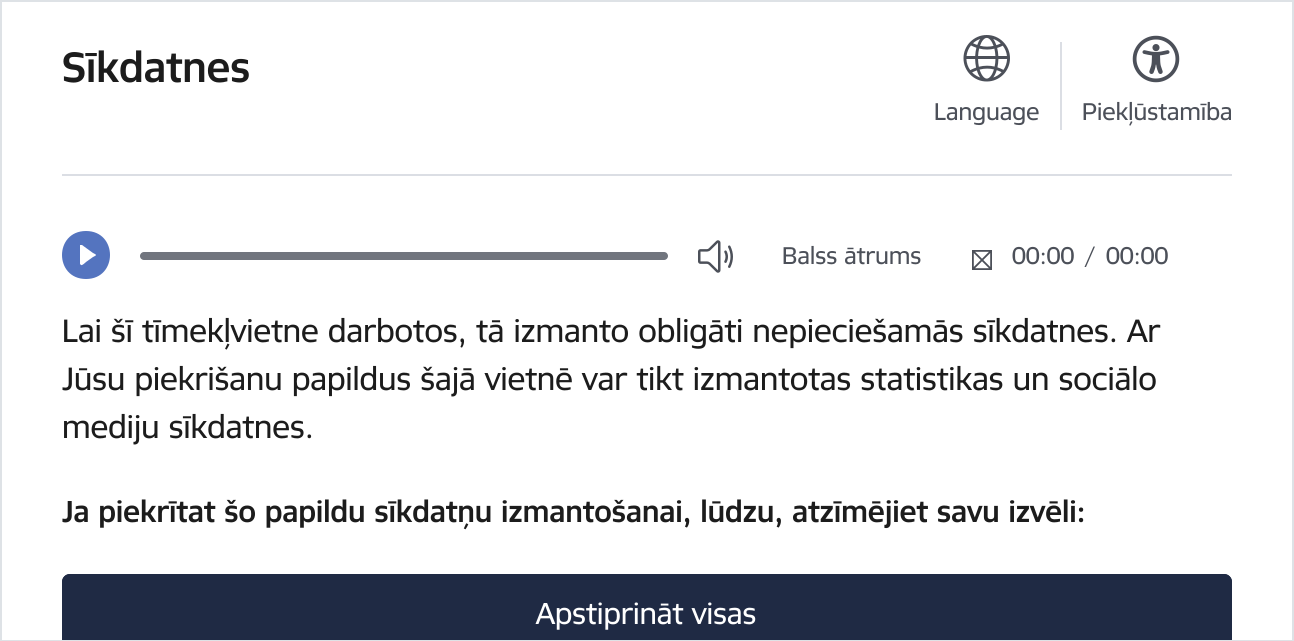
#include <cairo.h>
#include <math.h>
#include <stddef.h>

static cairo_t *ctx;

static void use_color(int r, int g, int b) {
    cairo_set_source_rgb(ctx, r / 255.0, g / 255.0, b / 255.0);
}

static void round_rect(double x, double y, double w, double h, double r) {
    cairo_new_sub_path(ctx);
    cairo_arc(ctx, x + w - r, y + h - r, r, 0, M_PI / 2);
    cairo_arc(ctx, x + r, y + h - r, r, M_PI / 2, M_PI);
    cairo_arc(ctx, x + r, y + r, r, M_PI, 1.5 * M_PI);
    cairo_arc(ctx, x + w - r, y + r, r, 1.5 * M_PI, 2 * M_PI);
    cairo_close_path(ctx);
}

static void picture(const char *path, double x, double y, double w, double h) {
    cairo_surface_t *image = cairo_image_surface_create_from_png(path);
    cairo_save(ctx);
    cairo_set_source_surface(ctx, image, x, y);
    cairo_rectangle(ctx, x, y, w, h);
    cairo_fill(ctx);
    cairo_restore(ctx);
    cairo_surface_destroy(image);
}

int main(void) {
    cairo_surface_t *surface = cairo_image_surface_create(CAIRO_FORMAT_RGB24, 1294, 641);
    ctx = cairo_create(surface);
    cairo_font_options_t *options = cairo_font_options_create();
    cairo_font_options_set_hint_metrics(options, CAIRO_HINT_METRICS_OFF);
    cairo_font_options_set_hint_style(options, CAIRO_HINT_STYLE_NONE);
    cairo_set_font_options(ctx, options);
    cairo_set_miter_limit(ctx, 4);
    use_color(255, 255, 255);
    cairo_paint(ctx);
    cairo_rectangle(ctx, 1, 1, 1292, 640);
    use_color(222, 226, 230);
    cairo_stroke(ctx);
    picture("img1.png", 63, 50, 186, 33);
    picture("img2.png", 963, 35, 47, 47);
    picture("img3.png", 935, 103, 104, 23);
    use_color(219, 222, 228);
    cairo_rectangle(ctx, 1060, 42, 2, 88);
    cairo_fill(ctx);
    picture("img4.png", 1132, 35, 48, 48);
    picture("img5.png", 1083, 101, 148, 25);
    cairo_rectangle(ctx, 62, 174, 1170, 2);
    cairo_fill(ctx);
    use_color(84, 116, 191);
    cairo_new_path(ctx);
    cairo_move_to(ctx, 86, 279);
    cairo_curve_to(ctx, 118, 279, 118, 231, 86, 231);
    cairo_curve_to(ctx, 54, 231, 54, 279, 86, 279);
    cairo_close_path(ctx);
    cairo_move_to(ctx, 82, 245);
    cairo_line_to(ctx, 93, 253);
    cairo_curve_to(ctx, 97, 255, 97, 255, 93, 257);
    cairo_line_to(ctx, 86, 262);
    cairo_curve_to(ctx, 86, 262, 82, 266, 81, 265);
    cairo_line_to(ctx, 80, 264);
    cairo_line_to(ctx, 80, 255);
    cairo_line_to(ctx, 80, 245);
    cairo_close_path(ctx);
    cairo_fill(ctx);
    use_color(113, 117, 126);
    round_rect(140, 252, 528, 8, 4);
    cairo_fill(ctx);
    picture("img6.png", 698, 240, 35, 33);
    picture("img7.png", 783, 245, 138, 20);
    picture("img8.png", 972, 250, 20, 20);
    picture("img9.png", 1012, 246, 62, 19);
    use_color(76, 80, 89);
    cairo_new_path(ctx);
    cairo_move_to(ctx, 1086, 267);
    cairo_line_to(ctx, 1095, 246.5);
    cairo_line_to(ctx, 1093.5, 246.5);
    cairo_line_to(ctx, 1084.5, 267);
    cairo_close_path(ctx);
    cairo_fill(ctx);
    picture("img9.png", 1106, 246, 62, 19);
    picture("img10.png", 64, 317, 1097, 33);
    picture("img11.png", 62, 365, 1094, 32);
    picture("img12.png", 64, 413, 248, 32);
    picture("img13.png", 62, 499, 1022, 31);
    use_color(31, 42, 68);
    cairo_new_path(ctx);
    cairo_move_to(ctx, 70, 574);
    cairo_line_to(ctx, 1224, 574);
    cairo_curve_to(ctx, 1228.5, 574, 1232, 577.5, 1232, 582);
    cairo_line_to(ctx, 1232, 640);
    cairo_line_to(ctx, 62, 640);
    cairo_line_to(ctx, 62, 582);
    cairo_curve_to(ctx, 62, 577.5, 65.5, 574, 70, 574);
    cairo_close_path(ctx);
    cairo_fill(ctx);
    cairo_save(ctx);
    cairo_rectangle(ctx, 2, 2, 1290, 638);
    cairo_clip(ctx);
    round_rect(63, 575, 1168, 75, 7);
    cairo_stroke(ctx);
    cairo_restore(ctx);
    picture("img14.png", 535, 602, 221, 28);
    cairo_surface_write_to_png(surface, "result.png");
    cairo_font_options_destroy(options);
    cairo_destroy(ctx);
    cairo_surface_destroy(surface);
    return 0;
}
